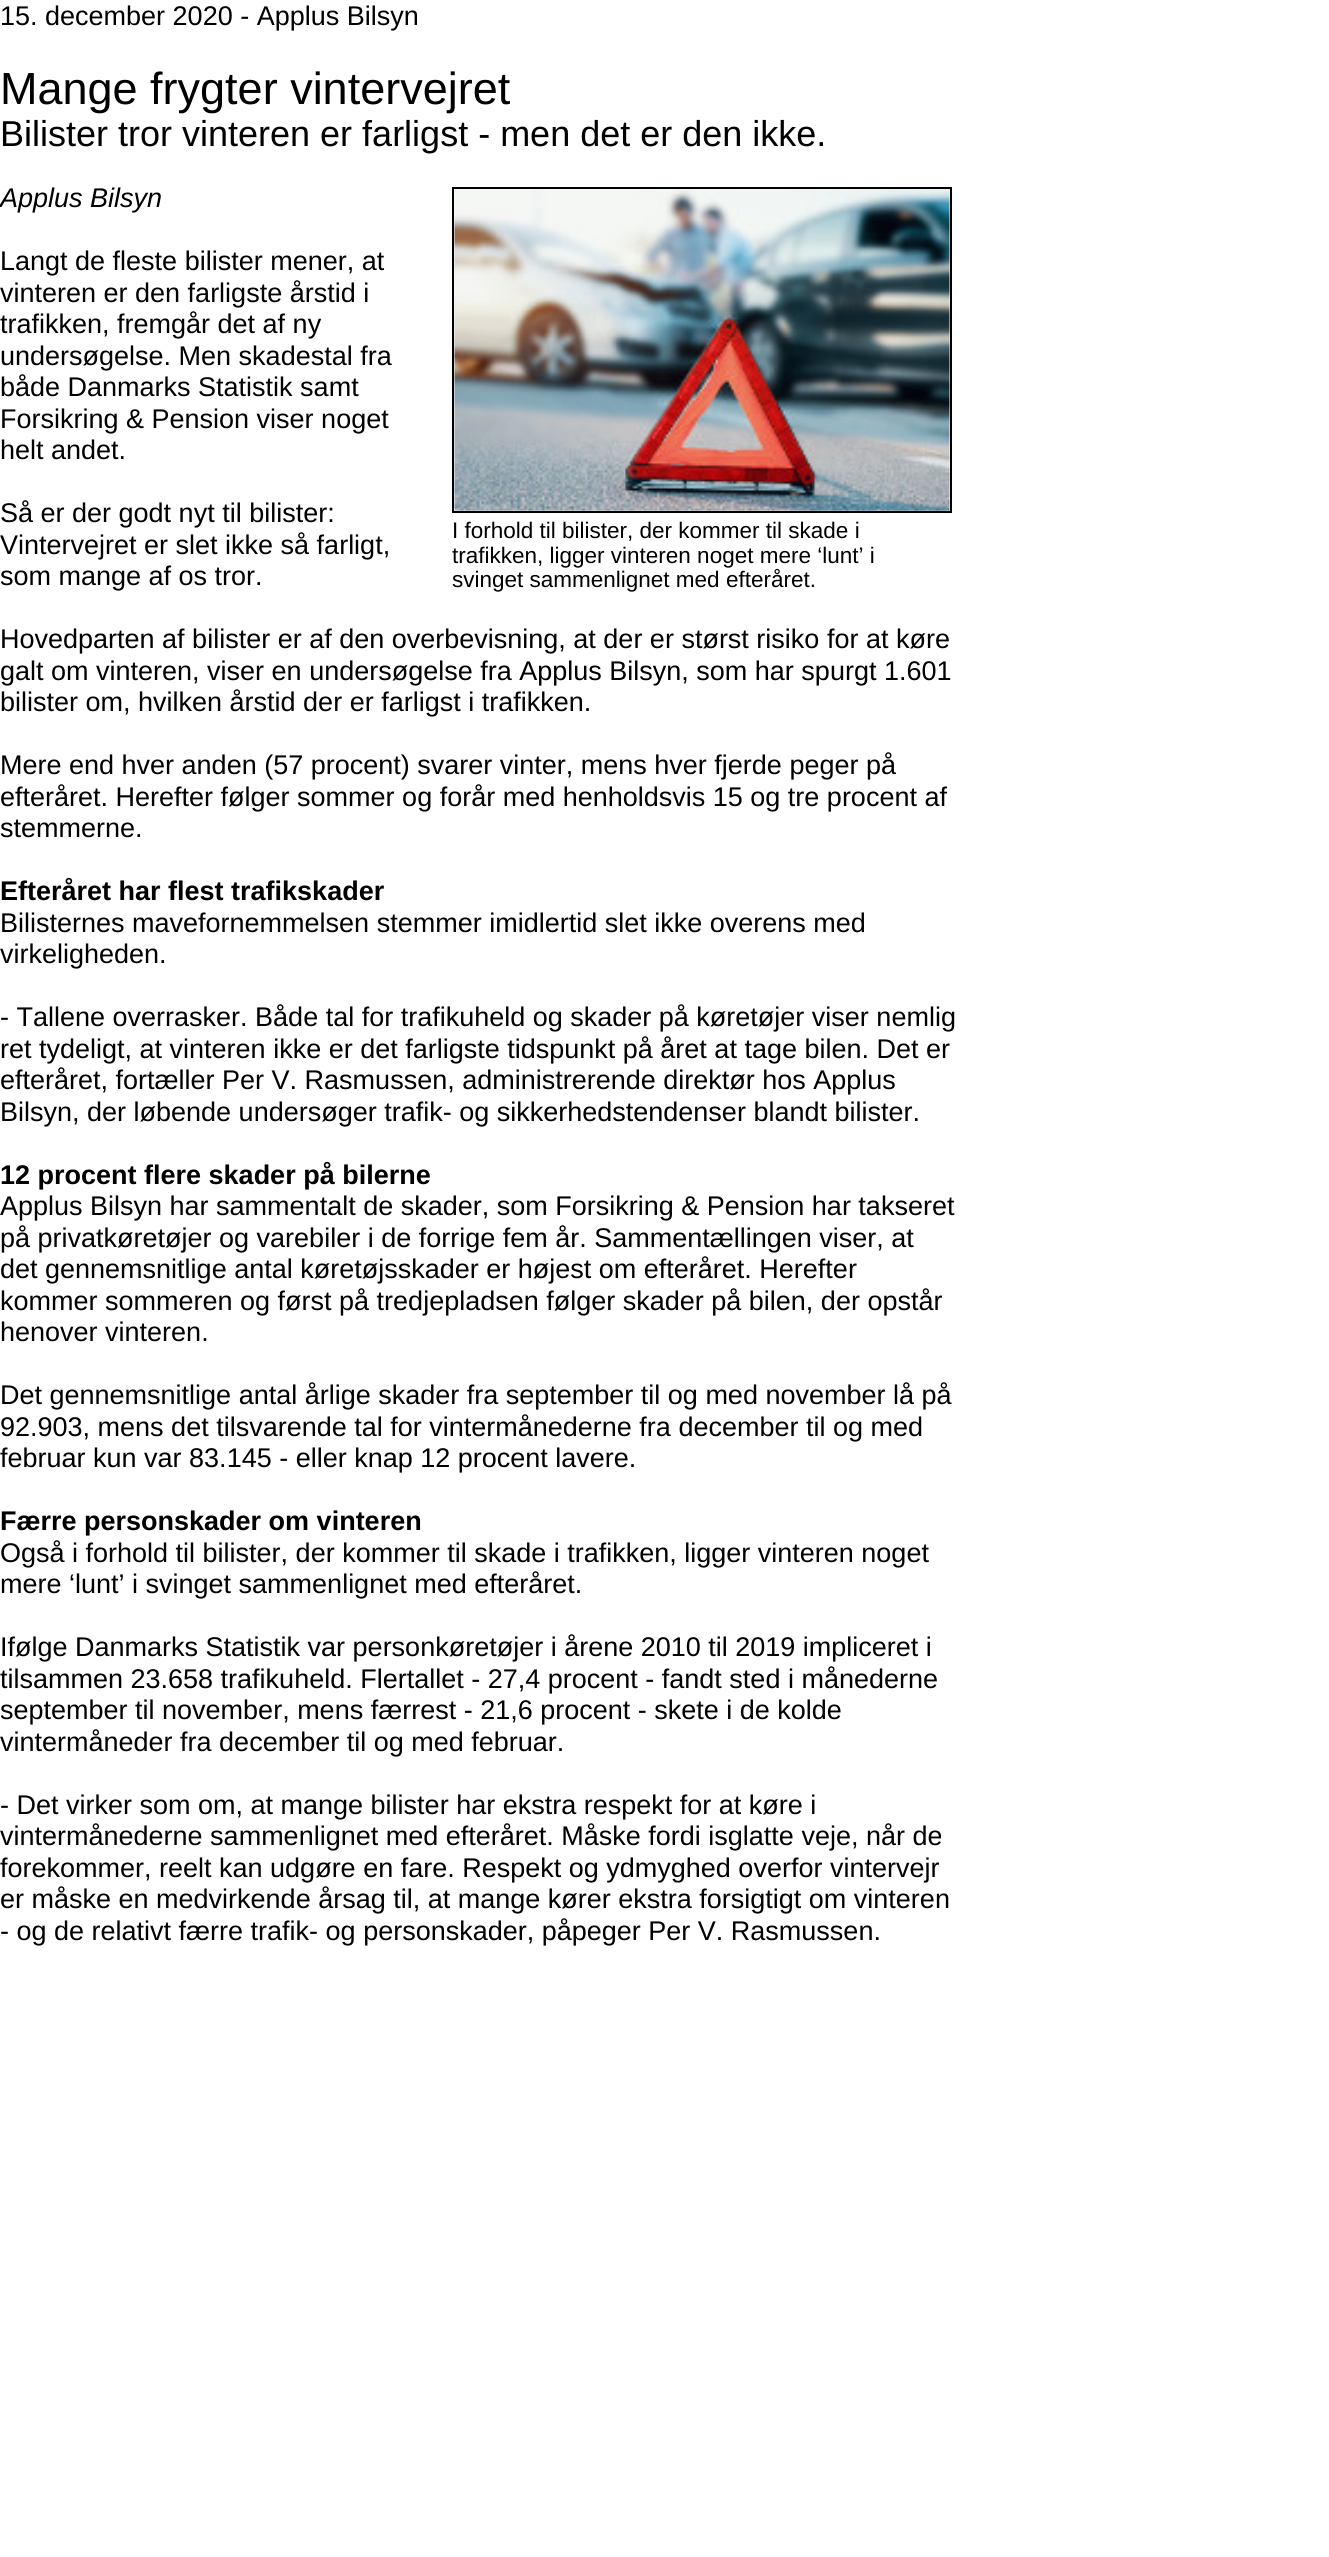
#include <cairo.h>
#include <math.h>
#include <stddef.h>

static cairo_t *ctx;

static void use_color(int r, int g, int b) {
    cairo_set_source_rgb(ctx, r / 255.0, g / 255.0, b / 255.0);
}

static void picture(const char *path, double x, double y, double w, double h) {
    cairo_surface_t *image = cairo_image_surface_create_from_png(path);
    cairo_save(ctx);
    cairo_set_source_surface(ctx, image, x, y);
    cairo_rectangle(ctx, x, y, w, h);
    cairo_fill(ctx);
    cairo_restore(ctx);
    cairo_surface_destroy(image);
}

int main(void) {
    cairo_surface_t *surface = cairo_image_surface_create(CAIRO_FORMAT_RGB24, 1329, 2557);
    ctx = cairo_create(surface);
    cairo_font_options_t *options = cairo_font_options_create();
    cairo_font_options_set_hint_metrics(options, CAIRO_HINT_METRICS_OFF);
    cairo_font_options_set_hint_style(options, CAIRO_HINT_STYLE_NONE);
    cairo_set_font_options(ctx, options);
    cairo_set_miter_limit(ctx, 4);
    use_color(255, 255, 255);
    cairo_paint(ctx);
    cairo_select_font_face(ctx, "Liberation Sans", CAIRO_FONT_SLANT_NORMAL, CAIRO_FONT_WEIGHT_NORMAL);
    cairo_set_font_size(ctx, 27);
    use_color(0, 0, 0);
    cairo_move_to(ctx, 0, 25);
    cairo_show_text(ctx, "15. december 2020 - Applus Bilsyn");
    cairo_set_font_size(ctx, 45);
    cairo_move_to(ctx, 0, 104);
    cairo_show_text(ctx, "Mange frygter vintervejret");
    cairo_set_font_size(ctx, 36);
    cairo_move_to(ctx, 0, 146);
    cairo_show_text(ctx, "Bilister tror vinteren er farligst - men det er den ikke.");
    cairo_select_font_face(ctx, "Liberation Sans", CAIRO_FONT_SLANT_ITALIC, CAIRO_FONT_WEIGHT_NORMAL);
    cairo_set_font_size(ctx, 27);
    cairo_move_to(ctx, 0, 207);
    cairo_show_text(ctx, "Applus Bilsyn");
    cairo_select_font_face(ctx, "Liberation Sans", CAIRO_FONT_SLANT_NORMAL, CAIRO_FONT_WEIGHT_NORMAL);
    cairo_move_to(ctx, 0, 270);
    cairo_show_text(ctx, "Langt de fleste bilister mener, at");
    cairo_move_to(ctx, 0, 302);
    cairo_show_text(ctx, "vinteren er den farligste årstid i");
    cairo_move_to(ctx, 0, 333);
    cairo_show_text(ctx, "trafikken, fremgår det af ny");
    cairo_move_to(ctx, 0, 365);
    cairo_show_text(ctx, "undersøgelse. Men skadestal fra");
    cairo_move_to(ctx, 0, 396);
    cairo_show_text(ctx, "både Danmarks Statistik samt");
    cairo_move_to(ctx, 0, 428);
    cairo_show_text(ctx, "Forsikring & Pension viser noget");
    cairo_move_to(ctx, 0, 459);
    cairo_show_text(ctx, "helt andet.");
    cairo_move_to(ctx, 0, 522);
    cairo_show_text(ctx, "Så er der godt nyt til bilister:");
    cairo_move_to(ctx, 0, 554);
    cairo_show_text(ctx, "Vintervejret er slet ikke så farligt,");
    cairo_rectangle(ctx, 453, 188, 498, 324);
    cairo_stroke(ctx);
    picture("img1.png", 454, 189, 496, 322);
    cairo_set_font_size(ctx, 22.5);
    cairo_move_to(ctx, 452, 538);
    cairo_show_text(ctx, "I forhold til bilister, der kommer til skade i");
    cairo_move_to(ctx, 452, 563);
    cairo_show_text(ctx, "trafikken, ligger vinteren noget mere ‘lunt’ i");
    cairo_move_to(ctx, 452, 587);
    cairo_show_text(ctx, "svinget sammenlignet med efteråret.");
    cairo_set_font_size(ctx, 27);
    cairo_move_to(ctx, 0, 585);
    cairo_show_text(ctx, "som mange af os tror.");
    cairo_move_to(ctx, 0, 648);
    cairo_show_text(ctx, "Hovedparten af bilister er af den overbevisning, at der er størst risiko for at køre");
    cairo_move_to(ctx, 0, 680);
    cairo_show_text(ctx, "galt om vinteren, viser en undersøgelse fra Applus Bilsyn, som har spurgt 1.601");
    cairo_move_to(ctx, 0, 711);
    cairo_show_text(ctx, "bilister om, hvilken årstid der er farligst i trafikken.");
    cairo_move_to(ctx, 0, 774);
    cairo_show_text(ctx, "Mere end hver anden (57 procent) svarer vinter, mens hver fjerde peger på");
    cairo_move_to(ctx, 0, 806);
    cairo_show_text(ctx, "efteråret. Herefter følger sommer og forår med henholdsvis 15 og tre procent af");
    cairo_move_to(ctx, 0, 837);
    cairo_show_text(ctx, "stemmerne.");
    cairo_select_font_face(ctx, "Liberation Sans", CAIRO_FONT_SLANT_NORMAL, CAIRO_FONT_WEIGHT_BOLD);
    cairo_move_to(ctx, 0, 900);
    cairo_show_text(ctx, "Efteråret har flest trafikskader");
    cairo_select_font_face(ctx, "Liberation Sans", CAIRO_FONT_SLANT_NORMAL, CAIRO_FONT_WEIGHT_NORMAL);
    cairo_move_to(ctx, 0, 932);
    cairo_show_text(ctx, "Bilisternes mavefornemmelsen stemmer imidlertid slet ikke overens med");
    cairo_move_to(ctx, 0, 963);
    cairo_show_text(ctx, "virkeligheden.");
    cairo_move_to(ctx, 0, 1026);
    cairo_show_text(ctx, "- Tallene overrasker. Både tal for trafikuheld og skader på køretøjer viser nemlig");
    cairo_move_to(ctx, 0, 1058);
    cairo_show_text(ctx, "ret tydeligt, at vinteren ikke er det farligste tidspunkt på året at tage bilen. Det er");
    cairo_move_to(ctx, 0, 1089);
    cairo_show_text(ctx, "efteråret, fortæller Per V. Rasmussen, administrerende direktør hos Applus");
    cairo_move_to(ctx, 0, 1121);
    cairo_show_text(ctx, "Bilsyn, der løbende undersøger trafik- og sikkerhedstendenser blandt bilister.");
    cairo_select_font_face(ctx, "Liberation Sans", CAIRO_FONT_SLANT_NORMAL, CAIRO_FONT_WEIGHT_BOLD);
    cairo_move_to(ctx, 0, 1184);
    cairo_show_text(ctx, "12 procent flere skader på bilerne");
    cairo_select_font_face(ctx, "Liberation Sans", CAIRO_FONT_SLANT_NORMAL, CAIRO_FONT_WEIGHT_NORMAL);
    cairo_move_to(ctx, 0, 1215);
    cairo_show_text(ctx, "Applus Bilsyn har sammentalt de skader, som Forsikring & Pension har takseret");
    cairo_move_to(ctx, 0, 1247);
    cairo_show_text(ctx, "på privatkøretøjer og varebiler i de forrige fem år. Sammentællingen viser, at");
    cairo_move_to(ctx, 0, 1278);
    cairo_show_text(ctx, "det gennemsnitlige antal køretøjsskader er højest om efteråret. Herefter");
    cairo_move_to(ctx, 0, 1310);
    cairo_show_text(ctx, "kommer sommeren og først på tredjepladsen følger skader på bilen, der opstår");
    cairo_move_to(ctx, 0, 1341);
    cairo_show_text(ctx, "henover vinteren.");
    cairo_move_to(ctx, 0, 1404);
    cairo_show_text(ctx, "Det gennemsnitlige antal årlige skader fra september til og med november lå på");
    cairo_move_to(ctx, 0, 1436);
    cairo_show_text(ctx, "92.903, mens det tilsvarende tal for vintermånederne fra december til og med");
    cairo_move_to(ctx, 0, 1467);
    cairo_show_text(ctx, "februar kun var 83.145 - eller knap 12 procent lavere.");
    cairo_select_font_face(ctx, "Liberation Sans", CAIRO_FONT_SLANT_NORMAL, CAIRO_FONT_WEIGHT_BOLD);
    cairo_move_to(ctx, 0, 1530);
    cairo_show_text(ctx, "Færre personskader om vinteren");
    cairo_select_font_face(ctx, "Liberation Sans", CAIRO_FONT_SLANT_NORMAL, CAIRO_FONT_WEIGHT_NORMAL);
    cairo_move_to(ctx, 0, 1562);
    cairo_show_text(ctx, "Også i forhold til bilister, der kommer til skade i trafikken, ligger vinteren noget");
    cairo_move_to(ctx, 0, 1593);
    cairo_show_text(ctx, "mere ‘lunt’ i svinget sammenlignet med efteråret.");
    cairo_move_to(ctx, 0, 1656);
    cairo_show_text(ctx, "Ifølge Danmarks Statistik var personkøretøjer i årene 2010 til 2019 impliceret i");
    cairo_move_to(ctx, 0, 1688);
    cairo_show_text(ctx, "tilsammen 23.658 trafikuheld. Flertallet - 27,4 procent - fandt sted i månederne");
    cairo_move_to(ctx, 0, 1719);
    cairo_show_text(ctx, "september til november, mens færrest - 21,6 procent - skete i de kolde");
    cairo_move_to(ctx, 0, 1751);
    cairo_show_text(ctx, "vintermåneder fra december til og med februar.");
    cairo_move_to(ctx, 0, 1814);
    cairo_show_text(ctx, "- Det virker som om, at mange bilister har ekstra respekt for at køre i");
    cairo_move_to(ctx, 0, 1845);
    cairo_show_text(ctx, "vintermånederne sammenlignet med efteråret. Måske fordi isglatte veje, når de");
    cairo_move_to(ctx, 0, 1877);
    cairo_show_text(ctx, "forekommer, reelt kan udgøre en fare. Respekt og ydmyghed overfor vintervejr");
    cairo_move_to(ctx, 0, 1908);
    cairo_show_text(ctx, "er måske en medvirkende årsag til, at mange kører ekstra forsigtigt om vinteren");
    cairo_move_to(ctx, 0, 1940);
    cairo_show_text(ctx, "- og de relativt færre trafik- og personskader, påpeger Per V. Rasmussen.");
    cairo_surface_write_to_png(surface, "result.png");
    cairo_font_options_destroy(options);
    cairo_destroy(ctx);
    cairo_surface_destroy(surface);
    return 0;
}
